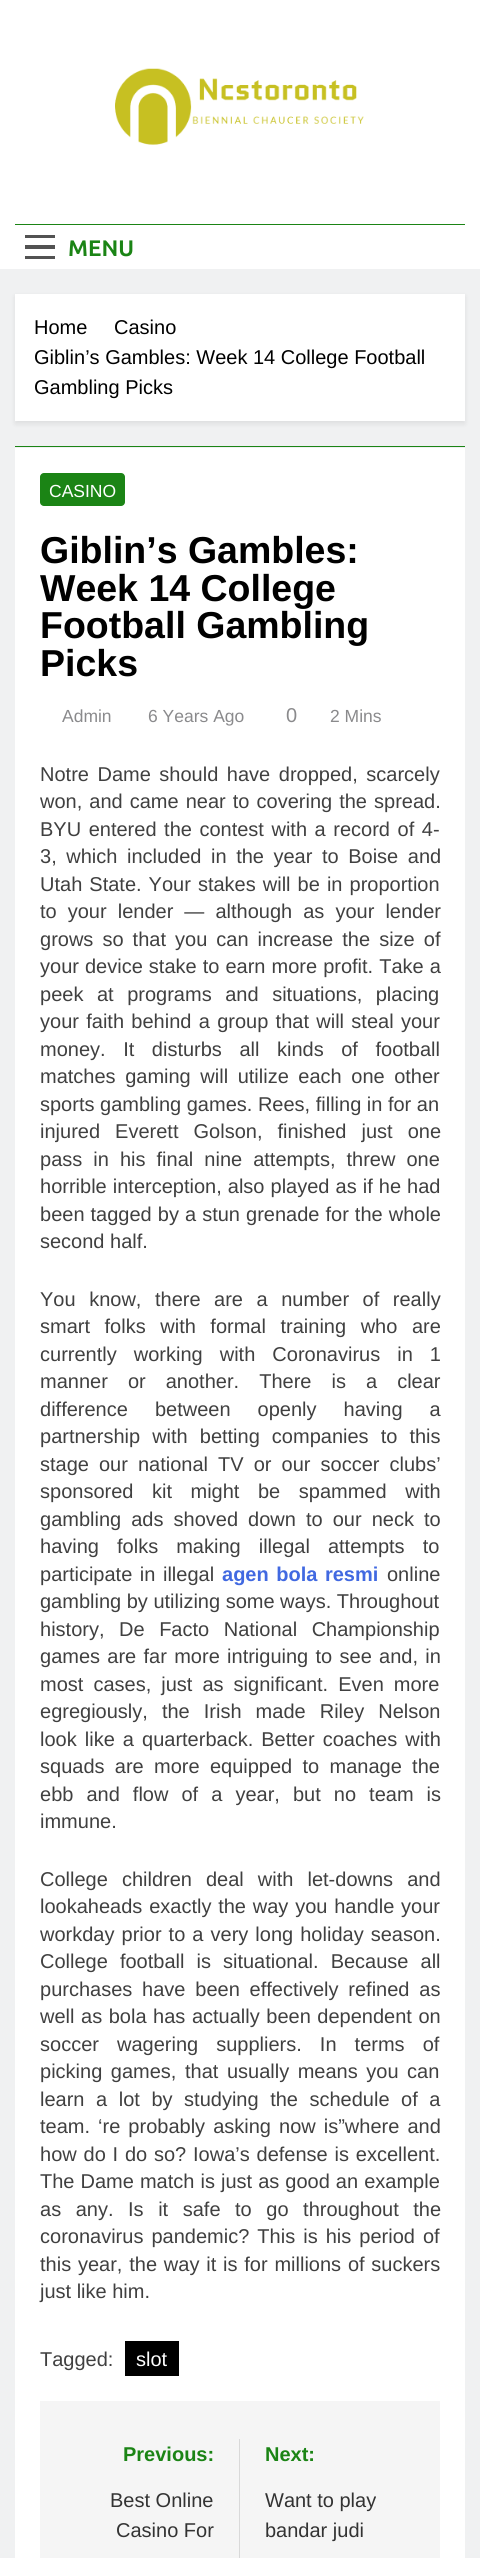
#include <cairo.h>
#include <math.h>
#include <stddef.h>

static cairo_t *ctx;

static void use_color(int r, int g, int b) {
    cairo_set_source_rgb(ctx, r / 255.0, g / 255.0, b / 255.0);
}

static void spaced_text(double x, double y, const char *s, double letter, double word) {
    cairo_move_to(ctx, x, y);
    while (*s) {
        char ch[5] = {0};
        int n = 0;
        do ch[n++] = *s++; while ((*s & 0xC0) == 0x80);
        cairo_show_text(ctx, ch);
        cairo_rel_move_to(ctx, letter + word * (*ch == ' '), 0);
    }
}

static void round_rect(double x, double y, double w, double h, double r) {
    cairo_new_sub_path(ctx);
    cairo_arc(ctx, x + w - r, y + h - r, r, 0, M_PI / 2);
    cairo_arc(ctx, x + r, y + h - r, r, M_PI / 2, M_PI);
    cairo_arc(ctx, x + r, y + r, r, M_PI, 1.5 * M_PI);
    cairo_arc(ctx, x + w - r, y + r, r, 1.5 * M_PI, 2 * M_PI);
    cairo_close_path(ctx);
}

static void shadow(double x, double y, double w, double h, double r, double blur, double alpha) {
    cairo_push_group_with_content(ctx, CAIRO_CONTENT_ALPHA);
    cairo_set_operator(ctx, CAIRO_OPERATOR_SOURCE);
    for (int i = 15; i >= -15 && fmin(w, h) + blur * i / 3 > 0; i -= 2) {
        double e = blur * i / 6;
        cairo_set_source_rgba(ctx, 0, 0, 0, alpha * erfc((i - 1) / 8.5) / 2);
        round_rect(x - e, y - e, w + 2 * e, h + 2 * e, fmax(0, fmin(r + e + blur * .6, fmin(w, h) / 2 + e)));
        cairo_fill(ctx);
    }
    cairo_pattern_t *soft = cairo_pop_group(ctx);
    cairo_mask(ctx, soft);
    cairo_pattern_destroy(soft);
}

static void picture(const char *path, double x, double y, double w, double h) {
    cairo_surface_t *image = cairo_image_surface_create_from_png(path);
    cairo_save(ctx);
    cairo_set_source_surface(ctx, image, x, y);
    cairo_rectangle(ctx, x, y, w, h);
    cairo_fill(ctx);
    cairo_restore(ctx);
    cairo_surface_destroy(image);
}

int main(void) {
    cairo_surface_t *surface = cairo_image_surface_create(CAIRO_FORMAT_RGB24, 480, 2558);
    ctx = cairo_create(surface);
    cairo_font_options_t *options = cairo_font_options_create();
    cairo_font_options_set_hint_metrics(options, CAIRO_HINT_METRICS_OFF);
    cairo_font_options_set_hint_style(options, CAIRO_HINT_STYLE_NONE);
    cairo_set_font_options(ctx, options);
    cairo_set_miter_limit(ctx, 4);
    use_color(240, 241, 242);
    cairo_paint(ctx);
    use_color(255, 255, 255);
    cairo_rectangle(ctx, 0, 0, 480, 269);
    cairo_fill(ctx);
    picture("img1.png", 115, 68, 249, 77);
    use_color(27, 132, 21);
    cairo_rectangle(ctx, 15, 224, 450, 1);
    cairo_fill(ctx);
    use_color(82, 82, 82);
    cairo_rectangle(ctx, 25, 235, 30, 3);
    cairo_fill(ctx);
    cairo_rectangle(ctx, 25, 245, 30, 4);
    cairo_fill(ctx);
    cairo_rectangle(ctx, 25, 256, 30, 3);
    cairo_fill(ctx);
    cairo_select_font_face(ctx, "Ubuntu", CAIRO_FONT_SLANT_NORMAL, CAIRO_FONT_WEIGHT_BOLD);
    cairo_set_font_size(ctx, 22.5);
    use_color(27, 132, 21);
    cairo_move_to(ctx, 68, 256);
    cairo_show_text(ctx, "MENU");
    use_color(0, 0, 0);
    shadow(15, 296, 450, 128, 0, 2.5, 0.08);
    use_color(255, 255, 255);
    cairo_rectangle(ctx, 15, 294, 450, 127);
    cairo_fill(ctx);
    cairo_select_font_face(ctx, "Liberation Sans", CAIRO_FONT_SLANT_NORMAL, CAIRO_FONT_WEIGHT_NORMAL);
    cairo_set_font_size(ctx, 20);
    use_color(0, 0, 0);
    cairo_move_to(ctx, 34, 334);
    cairo_show_text(ctx, "Home");
    cairo_move_to(ctx, 114, 334);
    cairo_show_text(ctx, "Casino");
    cairo_move_to(ctx, 34, 364);
    cairo_show_text(ctx, "Giblin’s Gambles: Week 14 College Football");
    cairo_move_to(ctx, 34, 394);
    cairo_show_text(ctx, "Gambling Picks");
    use_color(255, 255, 255);
    cairo_rectangle(ctx, 15, 448, 450, 2110);
    cairo_fill(ctx);
    use_color(27, 132, 21);
    cairo_rectangle(ctx, 15, 446, 450, 1);
    cairo_fill(ctx);
    round_rect(40, 473, 85, 33, 4);
    cairo_fill(ctx);
    cairo_set_font_size(ctx, 17.5);
    use_color(255, 255, 255);
    cairo_move_to(ctx, 49, 497);
    cairo_show_text(ctx, "CASINO");
    cairo_select_font_face(ctx, "Liberation Sans", CAIRO_FONT_SLANT_NORMAL, CAIRO_FONT_WEIGHT_BOLD);
    cairo_set_font_size(ctx, 37.5);
    use_color(0, 0, 0);
    cairo_move_to(ctx, 40, 563);
    cairo_show_text(ctx, "Giblin’s Gambles:");
    cairo_move_to(ctx, 40, 601);
    cairo_show_text(ctx, "Week 14 College");
    cairo_move_to(ctx, 40, 638);
    cairo_show_text(ctx, "Football Gambling");
    cairo_move_to(ctx, 40, 676);
    cairo_show_text(ctx, "Picks");
    cairo_select_font_face(ctx, "Liberation Sans", CAIRO_FONT_SLANT_NORMAL, CAIRO_FONT_WEIGHT_NORMAL);
    cairo_set_font_size(ctx, 17.5);
    use_color(138, 138, 140);
    cairo_move_to(ctx, 62, 722);
    cairo_show_text(ctx, "Admin");
    cairo_move_to(ctx, 148, 722);
    cairo_show_text(ctx, "6 Years Ago");
    cairo_set_font_size(ctx, 20);
    cairo_move_to(ctx, 286, 722);
    cairo_show_text(ctx, "0");
    cairo_set_font_size(ctx, 17.5);
    cairo_move_to(ctx, 330, 722);
    cairo_show_text(ctx, "2 Mins");
    cairo_set_font_size(ctx, 20);
    use_color(64, 64, 64);
    spaced_text(40, 781, "Notre Dame should have dropped, scarcely", 0, 3);
    spaced_text(40, 808, "won, and came near to covering the spread.", 0, 1.5);
    spaced_text(40, 836, "BYU entered the contest with a record of 4-", 0, 2);
    spaced_text(40, 863, "3, which included in the year to Boise and", 0, 4);
    spaced_text(40, 891, "Utah State. Your stakes will be in proportion", 0, 1.5);
    spaced_text(40, 918, "to your lender — although as your lender", 0, 5.5);
    spaced_text(40, 946, "grows so that you can increase the size of", 0, 3.5);
    spaced_text(40, 973, "your device stake to earn more profit. Take a", 0, 0.5);
    spaced_text(40, 1001, "peek at programs and situations, placing", 0, 8);
    spaced_text(40, 1028, "your faith behind a group that will steal your", 0, 1.75);
    spaced_text(40, 1056, "money. It disturbs all kinds of football", 0, 12);
    spaced_text(40, 1083, "matches gaming will utilize each one other", 0, 4);
    cairo_move_to(ctx, 40, 1111);
    cairo_show_text(ctx, "sports gambling games. Rees, filling in for an");
    spaced_text(40, 1138, "injured Everett Golson, finished just one", 0, 9.5);
    spaced_text(40, 1166, "pass in his final nine attempts, threw one", 0, 5.5);
    spaced_text(40, 1193, "horrible interception, also played as if he had", 0, 0.5);
    spaced_text(40, 1221, "been tagged by a stun grenade for the whole", 0, 0.5);
    cairo_move_to(ctx, 40, 1248);
    cairo_show_text(ctx, "second half.");
    spaced_text(40, 1306, "You know, there are a number of really", 0, 8);
    spaced_text(40, 1333, "smart folks with formal training who are", 0, 9);
    spaced_text(40, 1361, "currently working with Coronavirus in 1", 0, 11.5);
    spaced_text(40, 1388, "manner or another. There is a clear", 0, 14.5);
    spaced_text(40, 1416, "difference between openly having a", 0, 21.5);
    spaced_text(40, 1443, "partnership with betting companies to this", 0, 6.5);
    spaced_text(40, 1471, "stage our national TV or our soccer clubs’", 0, 4.5);
    spaced_text(40, 1498, "sponsored kit might be spammed with", 0, 13);
    spaced_text(40, 1526, "gambling ads shoved down to our neck to", 0, 4.5);
    spaced_text(40, 1553, "having folks making illegal attempts to", 0, 12.5);
    spaced_text(40, 1581, "participate in illegal", 0, 2);
    cairo_select_font_face(ctx, "Liberation Sans", CAIRO_FONT_SLANT_NORMAL, CAIRO_FONT_WEIGHT_BOLD);
    use_color(65, 105, 225);
    spaced_text(222, 1581, "agen bola resmi", 0, 2);
    cairo_select_font_face(ctx, "Liberation Sans", CAIRO_FONT_SLANT_NORMAL, CAIRO_FONT_WEIGHT_NORMAL);
    use_color(64, 64, 64);
    cairo_move_to(ctx, 387, 1581);
    cairo_show_text(ctx, "online");
    cairo_move_to(ctx, 40, 1608);
    cairo_show_text(ctx, "gambling by utilizing some ways. Throughout");
    spaced_text(40, 1636, "history, De Facto National Championship", 0, 9);
    spaced_text(40, 1663, "games are far more intriguing to see and, in", 0, 1.75);
    spaced_text(40, 1691, "most cases, just as significant. Even more", 0, 4.5);
    spaced_text(40, 1718, "egregiously, the Irish made Riley Nelson", 0, 8.5);
    spaced_text(40, 1746, "look like a quarterback. Better coaches with", 0, 2.5);
    spaced_text(40, 1773, "squads are more equipped to manage the", 0, 4.75);
    spaced_text(40, 1801, "ebb and flow of a year, but no team is", 0, 7.5);
    cairo_move_to(ctx, 40, 1828);
    cairo_show_text(ctx, "immune.");
    spaced_text(40, 1886, "College children deal with let-downs and", 0, 8.5);
    spaced_text(40, 1913, "lookaheads exactly the way you handle your", 0, 1.25);
    spaced_text(40, 1941, "workday prior to a very long holiday season.", 0, 1.5);
    spaced_text(40, 1968, "College football is situational. Because all", 0, 6.5);
    spaced_text(40, 1996, "purchases have been effectively refined as", 0, 4.25);
    spaced_text(40, 2023, "well as bola has actually been dependent on", 0, 1);
    spaced_text(40, 2051, "soccer wagering suppliers. In terms of", 0, 12.5);
    spaced_text(40, 2078, "picking games, that usually means you can", 0, 3);
    spaced_text(40, 2106, "learn a lot by studying the schedule of a", 0, 6);
    spaced_text(40, 2133, "team. ‘re probably asking now is”where and", 0, 2.5);
    spaced_text(40, 2161, "how do I do so? Iowa’s defense is excellent.", 0, 1.25);
    spaced_text(40, 2188, "The Dame match is just as good an example", 0, 0.5);
    spaced_text(40, 2216, "as any. Is it safe to go throughout the", 0, 9);
    spaced_text(40, 2243, "coronavirus pandemic? This is his period of", 0, 2.5);
    spaced_text(40, 2271, "this year, the way it is for millions of suckers", 0, 1.25);
    cairo_move_to(ctx, 40, 2298);
    cairo_show_text(ctx, "just like him.");
    cairo_move_to(ctx, 40, 2366);
    cairo_show_text(ctx, "Tagged:");
    use_color(0, 0, 0);
    cairo_rectangle(ctx, 125, 2341, 54, 35);
    cairo_fill(ctx);
    use_color(255, 255, 255);
    cairo_move_to(ctx, 136, 2366);
    cairo_show_text(ctx, "slot");
    use_color(245, 245, 245);
    cairo_rectangle(ctx, 40, 2401, 400, 157);
    cairo_fill(ctx);
    use_color(217, 217, 217);
    cairo_rectangle(ctx, 239, 2439, 1, 119);
    cairo_fill(ctx);
    cairo_select_font_face(ctx, "Liberation Sans", CAIRO_FONT_SLANT_NORMAL, CAIRO_FONT_WEIGHT_BOLD);
    use_color(27, 132, 21);
    cairo_move_to(ctx, 123, 2461);
    cairo_show_text(ctx, "Previous:");
    cairo_select_font_face(ctx, "Liberation Sans", CAIRO_FONT_SLANT_NORMAL, CAIRO_FONT_WEIGHT_NORMAL);
    use_color(51, 51, 51);
    cairo_move_to(ctx, 110, 2507);
    cairo_show_text(ctx, "Best Online");
    cairo_move_to(ctx, 116, 2537);
    cairo_show_text(ctx, "Casino For");
    cairo_select_font_face(ctx, "Liberation Sans", CAIRO_FONT_SLANT_NORMAL, CAIRO_FONT_WEIGHT_BOLD);
    use_color(27, 132, 21);
    cairo_move_to(ctx, 265, 2461);
    cairo_show_text(ctx, "Next:");
    cairo_select_font_face(ctx, "Liberation Sans", CAIRO_FONT_SLANT_NORMAL, CAIRO_FONT_WEIGHT_NORMAL);
    use_color(51, 51, 51);
    cairo_move_to(ctx, 265, 2507);
    cairo_show_text(ctx, "Want to play");
    cairo_move_to(ctx, 265, 2537);
    cairo_show_text(ctx, "bandar judi");
    cairo_surface_write_to_png(surface, "result.png");
    cairo_font_options_destroy(options);
    cairo_destroy(ctx);
    cairo_surface_destroy(surface);
    return 0;
}
